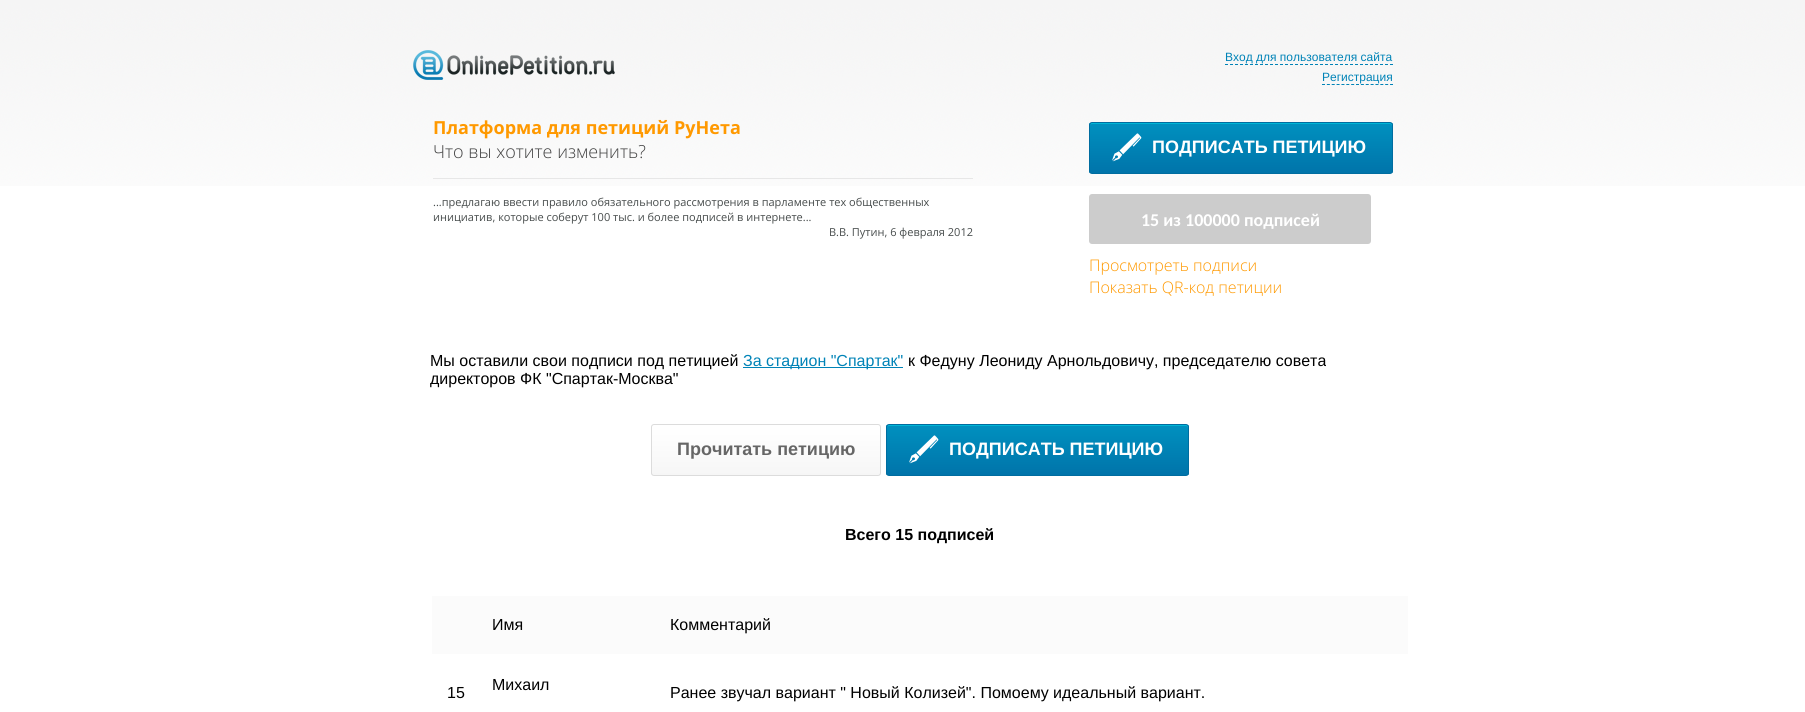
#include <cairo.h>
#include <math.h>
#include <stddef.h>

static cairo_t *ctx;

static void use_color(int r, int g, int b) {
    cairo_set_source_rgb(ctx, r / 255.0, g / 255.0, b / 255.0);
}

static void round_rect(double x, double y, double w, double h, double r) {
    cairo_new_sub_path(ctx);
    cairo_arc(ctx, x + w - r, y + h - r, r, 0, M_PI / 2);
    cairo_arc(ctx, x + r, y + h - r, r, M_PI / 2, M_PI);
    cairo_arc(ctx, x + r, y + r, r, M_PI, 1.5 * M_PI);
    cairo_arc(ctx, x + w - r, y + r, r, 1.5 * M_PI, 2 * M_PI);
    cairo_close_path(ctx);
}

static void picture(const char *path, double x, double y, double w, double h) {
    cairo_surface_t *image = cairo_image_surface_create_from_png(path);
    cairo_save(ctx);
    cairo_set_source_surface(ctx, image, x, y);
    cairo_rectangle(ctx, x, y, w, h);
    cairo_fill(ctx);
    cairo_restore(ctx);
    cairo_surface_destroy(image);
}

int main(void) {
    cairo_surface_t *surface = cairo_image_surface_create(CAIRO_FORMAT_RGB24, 1805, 712);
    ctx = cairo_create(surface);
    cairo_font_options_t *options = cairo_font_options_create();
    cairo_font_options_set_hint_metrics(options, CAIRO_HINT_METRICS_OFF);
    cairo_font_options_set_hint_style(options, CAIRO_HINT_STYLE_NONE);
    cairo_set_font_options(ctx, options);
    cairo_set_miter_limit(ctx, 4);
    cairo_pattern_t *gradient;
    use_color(255, 255, 255);
    cairo_paint(ctx);
    picture("img1.png", 0, 0, 1805, 186);
    picture("img2.png", 413, 50, 202, 30);
    cairo_select_font_face(ctx, "Liberation Sans", CAIRO_FONT_SLANT_NORMAL, CAIRO_FONT_WEIGHT_NORMAL);
    cairo_set_font_size(ctx, 12);
    use_color(0, 131, 183);
    cairo_move_to(ctx, 1225, 61);
    cairo_show_text(ctx, "Вход для пользователя сайта");
    cairo_new_path(ctx);
    cairo_move_to(ctx, 1225, 64.5);
    cairo_line_to(ctx, 1393, 64.5);
    cairo_set_line_width(ctx, 1);
    cairo_set_dash(ctx, (double[]){3, 2}, 2, 0);
    cairo_stroke(ctx);
    cairo_move_to(ctx, 1322, 81);
    cairo_show_text(ctx, "Регистрация");
    cairo_new_path(ctx);
    cairo_move_to(ctx, 1322, 84.5);
    cairo_line_to(ctx, 1393, 84.5);
    cairo_set_dash(ctx, (double[]){3, 1.86}, 2, 0);
    cairo_stroke(ctx);
    cairo_save(ctx);
    round_rect(1089, 122, 304, 52, 3);
    cairo_clip(ctx);
    gradient = cairo_pattern_create_linear(1090, 123, 1090, 173);
    cairo_pattern_add_color_stop_rgba(gradient, 0.05, 0, 0.561, 0.745, 1);
    cairo_pattern_add_color_stop_rgba(gradient, 1, 0, 0.455, 0.667, 1);
    cairo_set_source(ctx, gradient);
    cairo_pattern_destroy(gradient);
    cairo_rectangle(ctx, 1089, 123, 304, 50);
    cairo_fill(ctx);
    cairo_restore(ctx);
    use_color(0, 182, 214);
    cairo_new_path(ctx);
    cairo_move_to(ctx, 1092, 124);
    cairo_line_to(ctx, 1390, 124);
    cairo_curve_to(ctx, 1391, 124, 1392, 125, 1392, 126);
    cairo_curve_to(ctx, 1392, 125, 1392, 123, 1390, 123);
    cairo_line_to(ctx, 1091, 123);
    cairo_line_to(ctx, 1090, 126);
    cairo_curve_to(ctx, 1090, 125, 1091, 124, 1092, 124);
    cairo_close_path(ctx);
    cairo_fill(ctx);
    round_rect(1089.5, 122.5, 303, 51, 2.5);
    use_color(0, 109, 160);
    cairo_set_dash(ctx, NULL, 0, 0);
    cairo_stroke(ctx);
    picture("img3.png", 1112, 133, 30, 29);
    cairo_select_font_face(ctx, "Liberation Sans", CAIRO_FONT_SLANT_NORMAL, CAIRO_FONT_WEIGHT_BOLD);
    cairo_set_font_size(ctx, 18);
    use_color(255, 255, 255);
    cairo_move_to(ctx, 1152, 153);
    cairo_show_text(ctx, "ПОДПИСАТЬ ПЕТИЦИЮ");
    use_color(204, 204, 204);
    round_rect(1089, 194, 282, 50, 3);
    cairo_fill(ctx);
    cairo_select_font_face(ctx, "Carlito", CAIRO_FONT_SLANT_NORMAL, CAIRO_FONT_WEIGHT_BOLD);
    use_color(255, 255, 255);
    cairo_move_to(ctx, 1141, 226);
    cairo_show_text(ctx, "15 из 100000 подписей");
    cairo_select_font_face(ctx, "Open Sans Light", CAIRO_FONT_SLANT_NORMAL, CAIRO_FONT_WEIGHT_NORMAL);
    cairo_set_font_size(ctx, 16);
    use_color(255, 153, 0);
    cairo_move_to(ctx, 1089, 271);
    cairo_show_text(ctx, "Просмотреть подписи");
    cairo_move_to(ctx, 1089, 293);
    cairo_show_text(ctx, "Показать QR-код петиции");
    cairo_select_font_face(ctx, "Open Sans", CAIRO_FONT_SLANT_NORMAL, CAIRO_FONT_WEIGHT_BOLD);
    cairo_set_font_size(ctx, 18);
    cairo_move_to(ctx, 433, 134);
    cairo_show_text(ctx, "Платформа для петиций РуНета");
    cairo_select_font_face(ctx, "Open Sans Light", CAIRO_FONT_SLANT_NORMAL, CAIRO_FONT_WEIGHT_NORMAL);
    use_color(66, 66, 66);
    cairo_move_to(ctx, 433, 158);
    cairo_show_text(ctx, "Что вы хотите изменить?");
    use_color(231, 231, 231);
    cairo_rectangle(ctx, 433, 178, 540, 1);
    cairo_fill(ctx);
    cairo_select_font_face(ctx, "Open Sans", CAIRO_FONT_SLANT_NORMAL, CAIRO_FONT_WEIGHT_NORMAL);
    cairo_set_font_size(ctx, 11);
    use_color(71, 76, 76);
    cairo_move_to(ctx, 433, 206);
    cairo_show_text(ctx, "...предлагаю ввести правило обязательного рассмотрения в парламенте тех общественных");
    cairo_move_to(ctx, 433, 221);
    cairo_show_text(ctx, "инициатив, которые соберут 100 тыс. и более подписей в интернете...");
    cairo_move_to(ctx, 829, 236);
    cairo_show_text(ctx, "В.В. Путин, 6 февраля 2012");
    cairo_select_font_face(ctx, "Liberation Sans", CAIRO_FONT_SLANT_NORMAL, CAIRO_FONT_WEIGHT_NORMAL);
    cairo_set_font_size(ctx, 16);
    use_color(0, 0, 0);
    cairo_move_to(ctx, 430, 366);
    cairo_show_text(ctx, "Мы оставили свои подписи под петицией");
    use_color(0, 131, 183);
    cairo_rectangle(ctx, 743, 367, 160, 1);
    cairo_fill(ctx);
    cairo_move_to(ctx, 743, 366);
    cairo_show_text(ctx, "За стадион \"Спартак\"");
    use_color(0, 0, 0);
    cairo_move_to(ctx, 908, 366);
    cairo_show_text(ctx, "к Федуну Леониду Арнольдовичу, председателю совета");
    cairo_move_to(ctx, 430, 384);
    cairo_show_text(ctx, "директоров ФК \"Спартак-Москва\"");
    cairo_save(ctx);
    round_rect(651, 424, 230, 52, 3);
    cairo_clip(ctx);
    gradient = cairo_pattern_create_linear(652, 425, 652, 475);
    cairo_pattern_add_color_stop_rgba(gradient, 0.05, 1, 1, 1, 1);
    cairo_pattern_add_color_stop_rgba(gradient, 1, 0.965, 0.965, 0.965, 1);
    cairo_set_source(ctx, gradient);
    cairo_pattern_destroy(gradient);
    cairo_rectangle(ctx, 651, 425, 230, 50);
    cairo_fill(ctx);
    cairo_restore(ctx);
    round_rect(651.5, 424.5, 229, 51, 2.5);
    use_color(220, 220, 220);
    cairo_stroke(ctx);
    cairo_select_font_face(ctx, "Liberation Sans", CAIRO_FONT_SLANT_NORMAL, CAIRO_FONT_WEIGHT_BOLD);
    cairo_set_font_size(ctx, 18);
    use_color(102, 102, 102);
    cairo_move_to(ctx, 677, 455);
    cairo_show_text(ctx, "Прочитать петицию");
    cairo_save(ctx);
    round_rect(886, 424, 303, 52, 3);
    cairo_clip(ctx);
    gradient = cairo_pattern_create_linear(887, 425, 887, 475);
    cairo_pattern_add_color_stop_rgba(gradient, 0.05, 0, 0.561, 0.745, 1);
    cairo_pattern_add_color_stop_rgba(gradient, 1, 0, 0.455, 0.667, 1);
    cairo_set_source(ctx, gradient);
    cairo_pattern_destroy(gradient);
    cairo_rectangle(ctx, 886, 425, 303, 50);
    cairo_fill(ctx);
    cairo_restore(ctx);
    use_color(0, 182, 214);
    cairo_new_path(ctx);
    cairo_move_to(ctx, 889, 426);
    cairo_line_to(ctx, 1186, 426);
    cairo_curve_to(ctx, 1187, 426, 1188, 427, 1188, 428);
    cairo_curve_to(ctx, 1188, 427, 1188, 425, 1186, 425);
    cairo_line_to(ctx, 888, 425);
    cairo_line_to(ctx, 887, 428);
    cairo_curve_to(ctx, 887, 427, 888, 426, 889, 426);
    cairo_close_path(ctx);
    cairo_fill(ctx);
    round_rect(886.5, 424.5, 302, 51, 2.5);
    use_color(0, 109, 160);
    cairo_stroke(ctx);
    picture("img3.png", 909, 435, 30, 29);
    use_color(255, 255, 255);
    cairo_move_to(ctx, 949, 455);
    cairo_show_text(ctx, "ПОДПИСАТЬ ПЕТИЦИЮ");
    cairo_set_font_size(ctx, 16);
    use_color(0, 0, 0);
    cairo_move_to(ctx, 845, 540);
    cairo_show_text(ctx, "Всего 15 подписей");
    use_color(251, 251, 251);
    cairo_rectangle(ctx, 432, 596, 976, 58);
    cairo_fill(ctx);
    cairo_select_font_face(ctx, "Liberation Sans", CAIRO_FONT_SLANT_NORMAL, CAIRO_FONT_WEIGHT_NORMAL);
    use_color(0, 0, 0);
    cairo_move_to(ctx, 492, 630);
    cairo_show_text(ctx, "Имя");
    cairo_move_to(ctx, 670, 630);
    cairo_show_text(ctx, "Комментарий");
    cairo_move_to(ctx, 447, 698);
    cairo_show_text(ctx, "15");
    cairo_move_to(ctx, 492, 690);
    cairo_show_text(ctx, "Михаил");
    cairo_move_to(ctx, 670, 698);
    cairo_show_text(ctx, "Ранее звучал вариант \" Новый Колизей\". Помоему идеальный вариант.");
    cairo_surface_write_to_png(surface, "result.png");
    cairo_font_options_destroy(options);
    cairo_destroy(ctx);
    cairo_surface_destroy(surface);
    return 0;
}
